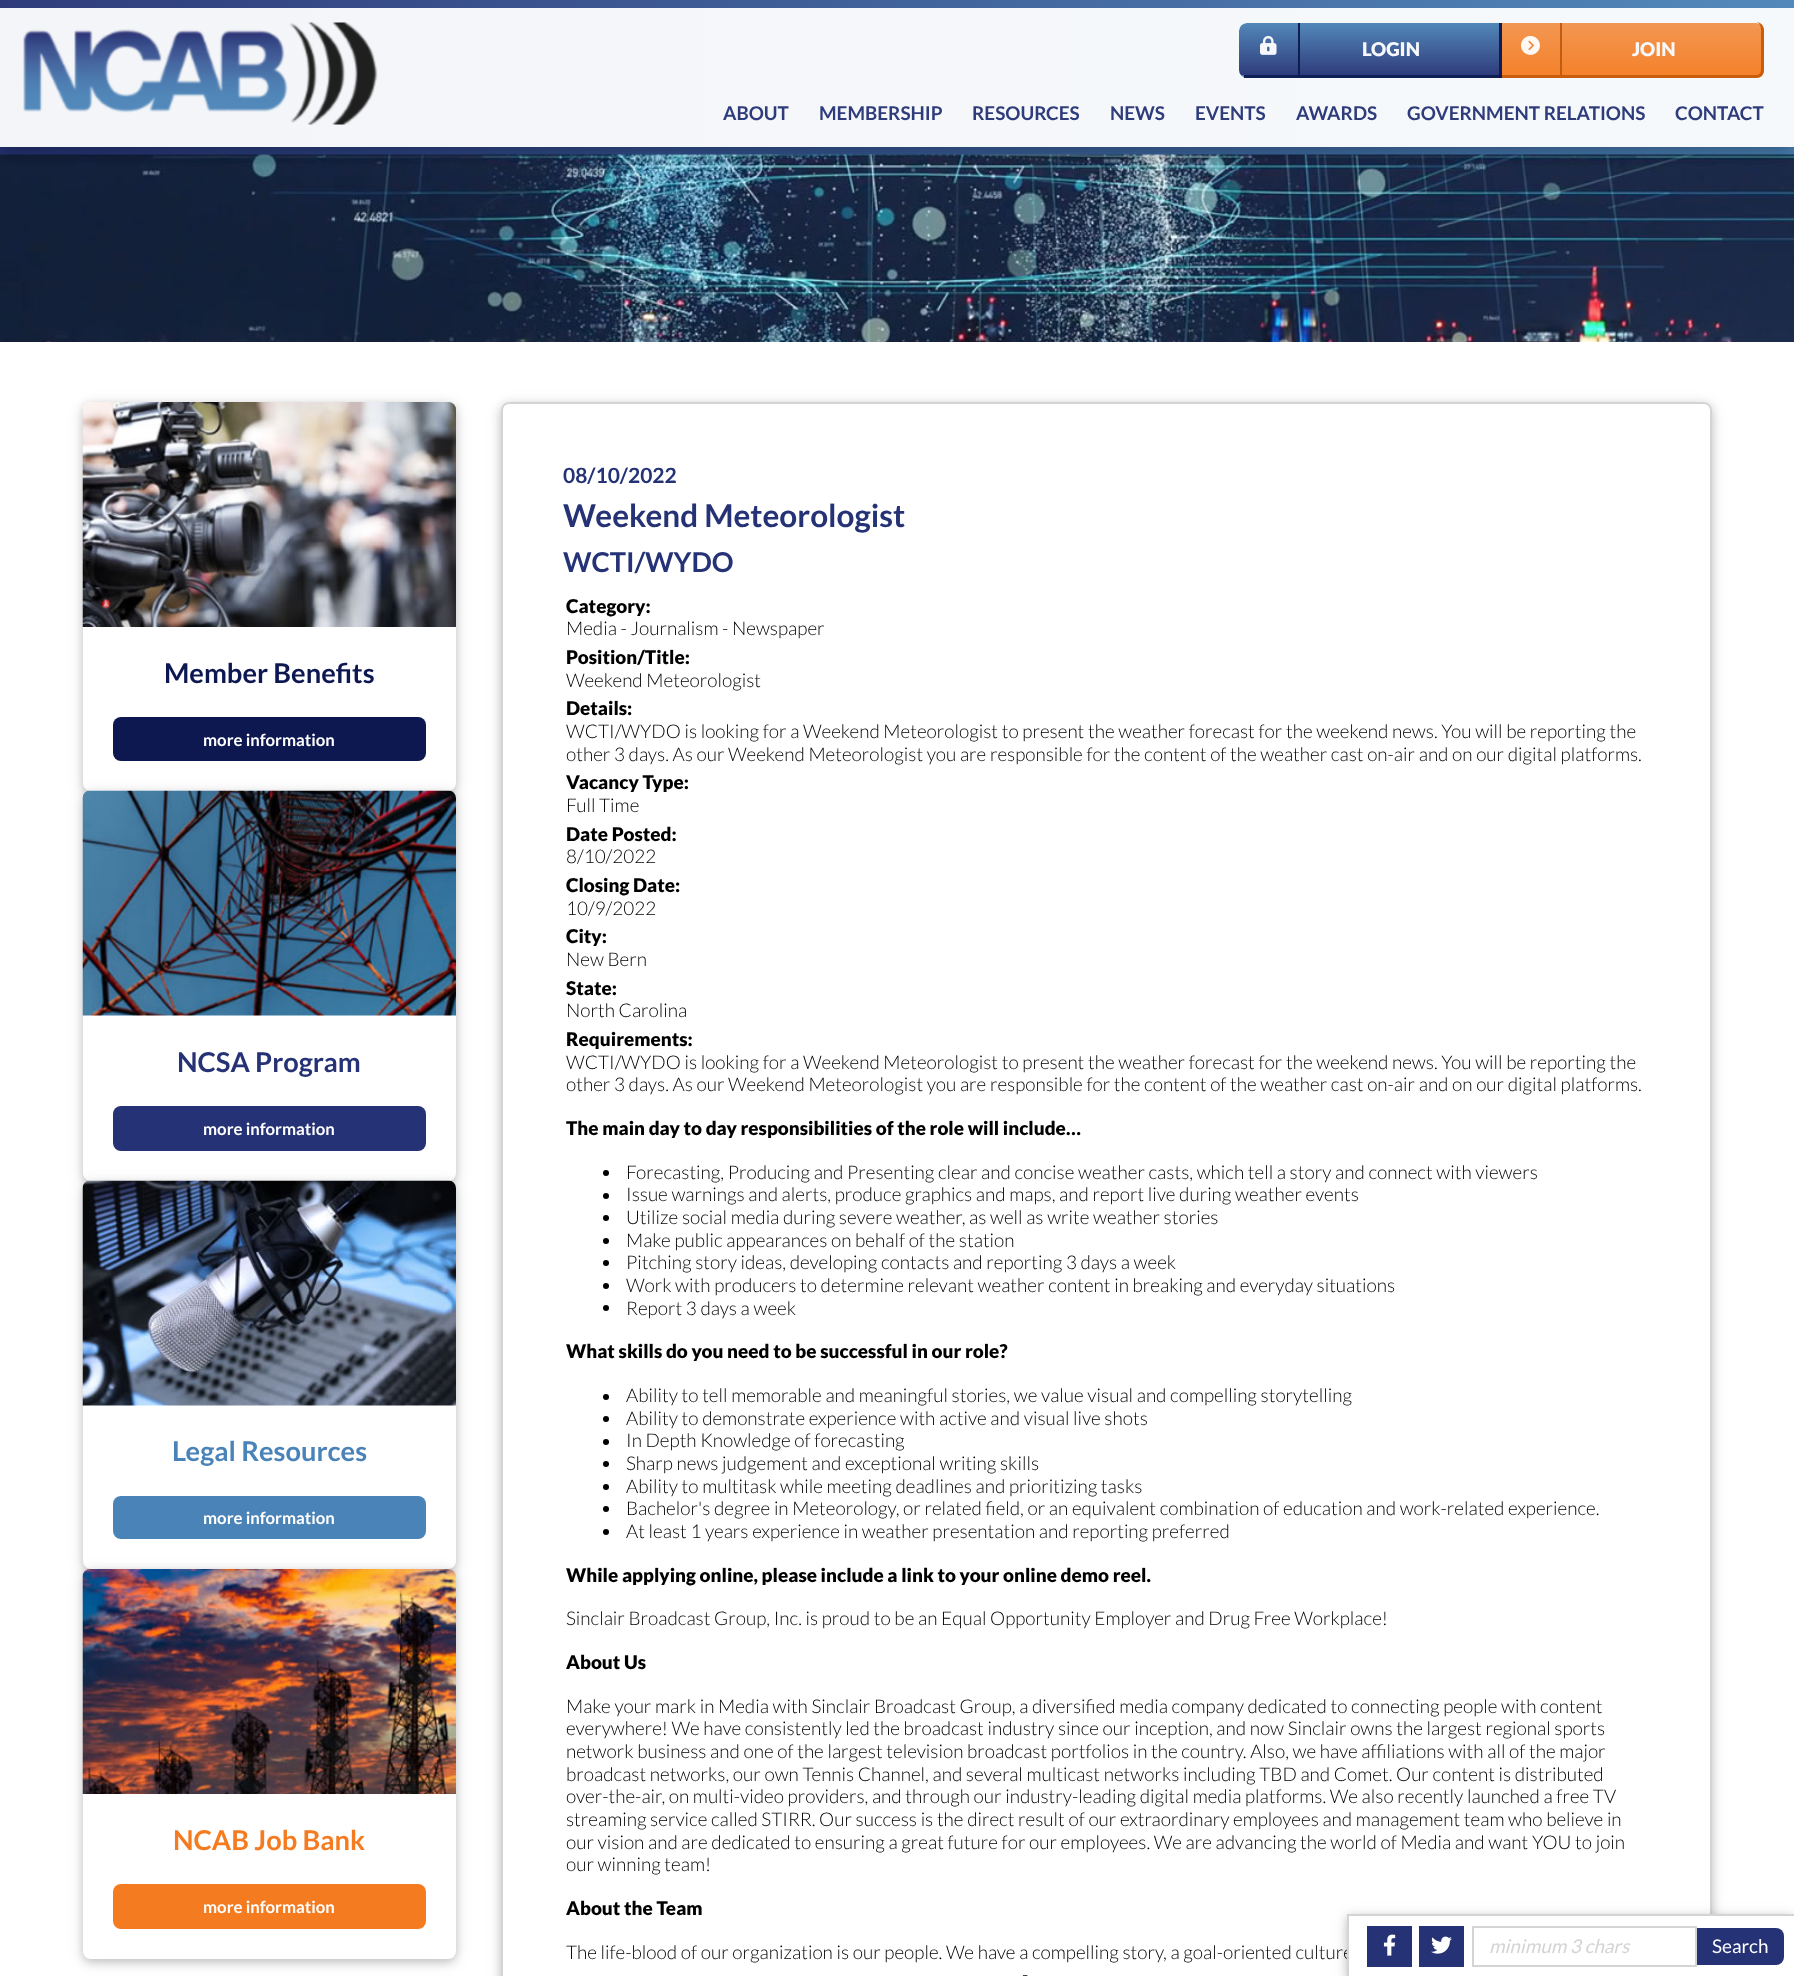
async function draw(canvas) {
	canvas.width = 1794;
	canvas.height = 1976;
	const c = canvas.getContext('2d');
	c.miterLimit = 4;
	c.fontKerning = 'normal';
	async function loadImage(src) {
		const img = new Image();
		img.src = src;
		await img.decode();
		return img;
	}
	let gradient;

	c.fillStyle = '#fff';
	c.fillRect(0, 0, 1794, 1976);
	gradient = c.createLinearGradient(0, 1348, 1794, 1348);
	gradient.addColorStop(0, '#253275');
	gradient.addColorStop(1, '#4a83b7');
	c.fillStyle = gradient;
	c.fillRect(0, 147, 1794, 8);
	gradient = c.createLinearGradient(0, 1348, 1794, 1348);
	gradient.addColorStop(0, '#f4f5f8');
	gradient.addColorStop(1, '#f6f9fb');
	c.fillStyle = gradient;
	c.fillRect(0, 0, 1794, 147);
	c.drawImage(await loadImage('img4.png'), 0, 154, 1794, 188);
	c.save();
	c.beginPath();
	c.rect(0, 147, 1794, 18);
	c.clip();
	c.fillStyle = '#00000024';
	c.filter = 'blur(11px)';
	c.beginPath();
	c.rect(0, 6, 1794, 147);
	c.fill();
	c.filter = 'none';
	c.restore();
	c.save();
	c.beginPath();
	c.rect(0, 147, 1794, 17);
	c.clip();
	c.fillStyle = '#0000002b';
	c.filter = 'blur(8px)';
	c.beginPath();
	c.rect(0, 8, 1794, 147);
	c.fill();
	c.filter = 'none';
	c.restore();
	gradient = c.createLinearGradient(0, 3.8, 1794, 3.7);
	gradient.addColorStop(0, '#253275f2');
	gradient.addColorStop(1, '#4a83b7f2');
	c.fillStyle = gradient;
	c.fillRect(0, 0, 1794, 8);
	c.drawImage(await loadImage('img1.png'), 23, 22, 355, 103);
	c.save();
	c.beginPath();
	c.roundRect(1239, 23, 263, 55, [8, 0, 0, 8]);
	c.clip();
	gradient = c.createLinearGradient(1369, 22, 1369, 75);
	gradient.addColorStop(0, '#5389ba');
	gradient.addColorStop(1, '#2f3c7c');
	c.fillStyle = gradient;
	c.beginPath();
	c.roundRect(1239, 23, 263, 52, [8, 0, 0, 0]);
	c.fill();
	gradient = c.createLinearGradient(1369, 75, 1369, 128);
	gradient.addColorStop(0, '#5389ba');
	gradient.addColorStop(1, '#2f3c7c');
	c.fillStyle = gradient;
	c.fillRect(1239, 75, 263, 3);
	c.restore();
	for (const [x, y, w, h, color] of [
		[1499, 23, 3, 55, '#101d55'],
		[1244, 75, 258, 3, '#0d1850f2'],
		[1298, 23, 2, 52, '#101c54'],
	]) {
		c.fillStyle = color;
		c.fillRect(x, y, w, h);
	}
	c.drawImage(await loadImage('img2.png'), 1260, 36, 17, 19);
	c.font = '900 18.9px Lato';
	c.fillStyle = '#f6f8fb';
	c.fillText('LOGIN', 1362, 56);
	c.save();
	c.beginPath();
	c.roundRect(1502, 23, 262, 55, [0, 8, 8, 0]);
	c.clip();
	gradient = c.createLinearGradient(1631, 22, 1631, 75);
	gradient.addColorStop(0, '#f29753');
	gradient.addColorStop(1, '#f5812b');
	c.fillStyle = gradient;
	c.beginPath();
	c.roundRect(1502, 23, 262, 52, [0, 8, 0, 0]);
	c.fill();
	gradient = c.createLinearGradient(1631, 75, 1631, 128);
	gradient.addColorStop(0, '#f29753');
	gradient.addColorStop(1, '#f5812b');
	c.fillStyle = gradient;
	c.fillRect(1502, 75, 262, 3);
	c.restore();
	c.fillStyle = '#c75a08f2';
	c.beginPath();
	c.moveTo(1502, 22);
	c.lineTo(1756, 22);
	c.bezierCurveTo(1761, 22, 1764, 26, 1764, 30);
	c.lineTo(1764, 70);
	c.bezierCurveTo(1764, 75, 1761, 78, 1756, 78);
	c.lineTo(1502, 78);
	c.closePath();
	c.moveTo(1502, 22);
	c.lineTo(1756, 22);
	c.bezierCurveTo(1759, 22, 1761, 26, 1761, 30);
	c.lineTo(1761, 70);
	c.bezierCurveTo(1761, 73, 1759, 75, 1756, 75);
	c.lineTo(1502, 75);
	c.closePath();
	c.fill('evenodd');
	c.fillStyle = '#c15c10';
	c.fillRect(1560, 23, 2, 52);
	c.drawImage(await loadImage('img3.png'), 1521, 36, 19, 19);
	c.fillStyle = '#f6f8fb';
	c.fillText('JOIN', 1632, 56);
	c.font = 'bold 18.9px Lato';
	c.fillStyle = '#2f3c7c';
	for (const [text, x, y] of [
		['ABOUT', 723, 120],
		['MEMBERSHIP', 819, 120],
		['RESOURCES', 972, 120],
		['NEWS', 1110, 120],
		['EVENTS', 1195, 120],
		['AWARDS', 1296, 120],
		['GOVERNMENT RELATIONS', 1407, 120],
		['CONTACT', 1675, 120],
	]) {
		c.fillText(text, x, y);
	}
	c.fillStyle = '#0000001f';
	c.filter = 'blur(7.5px)';
	c.beginPath();
	c.roundRect(83, 405, 373, 389, 8);
	c.fill();
	c.filter = 'none';
	c.fillStyle = '#00000029';
	c.filter = 'blur(4px)';
	c.beginPath();
	c.roundRect(83, 405, 373, 389, 8);
	c.fill();
	c.filter = 'none';
	c.fillStyle = '#fff';
	c.beginPath();
	c.roundRect(83, 402, 373, 389, 8);
	c.fill();
	c.drawImage(await loadImage('img5.png'), 82, 402, 374, 225);
	c.font = 'bold 27.25px Lato';
	c.fillStyle = '#0d1850';
	c.fillText('Member Benefits', 164, 683);
	c.beginPath();
	c.roundRect(113, 717, 313, 44, 8);
	c.fill();
	c.font = 'bold 16.75px Lato';
	c.fillStyle = '#fff';
	c.fillText('more information', 203, 746);
	c.fillStyle = '#0000001f';
	c.filter = 'blur(7.5px)';
	c.beginPath();
	c.roundRect(83, 794, 373, 390, 8);
	c.fill();
	c.filter = 'none';
	c.fillStyle = '#00000029';
	c.filter = 'blur(4px)';
	c.beginPath();
	c.roundRect(83, 794, 373, 390, 8);
	c.fill();
	c.filter = 'none';
	c.fillStyle = '#fff';
	c.beginPath();
	c.roundRect(83, 791, 373, 390, 8);
	c.fill();
	c.drawImage(await loadImage('img6.png'), 82, 790, 374, 226);
	c.font = 'bold 27.25px Lato';
	c.fillStyle = '#253275';
	c.fillText('NCSA Program', 177, 1072);
	c.beginPath();
	c.roundRect(113, 1106, 313, 45, 8);
	c.fill();
	c.font = 'bold 16.75px Lato';
	c.fillStyle = '#fff';
	c.fillText('more information', 203, 1135);
	c.fillStyle = '#0000001f';
	c.filter = 'blur(7.5px)';
	c.beginPath();
	c.roundRect(83, 1184, 373, 388, 8);
	c.fill();
	c.filter = 'none';
	c.fillStyle = '#00000029';
	c.filter = 'blur(4px)';
	c.beginPath();
	c.roundRect(83, 1184, 373, 388, 8);
	c.fill();
	c.filter = 'none';
	c.fillStyle = '#fff';
	c.beginPath();
	c.roundRect(83, 1181, 373, 388, 8);
	c.fill();
	c.drawImage(await loadImage('img7.png'), 82, 1180, 374, 226);
	c.font = 'bold 27.25px Lato';
	c.fillStyle = '#4a83b7';
	c.fillText('Legal Resources', 172, 1461);
	c.beginPath();
	c.roundRect(113, 1496, 313, 43, 8);
	c.fill();
	c.font = 'bold 16.75px Lato';
	c.fillStyle = '#fff';
	c.fillText('more information', 203, 1524);
	c.fillStyle = '#0000001f';
	c.filter = 'blur(7.5px)';
	c.beginPath();
	c.roundRect(83, 1572, 373, 390, 8);
	c.fill();
	c.filter = 'none';
	c.fillStyle = '#00000029';
	c.filter = 'blur(4px)';
	c.beginPath();
	c.roundRect(83, 1572, 373, 390, 8);
	c.fill();
	c.filter = 'none';
	c.fillStyle = '#fff';
	c.beginPath();
	c.roundRect(83, 1569, 373, 390, 8);
	c.fill();
	c.drawImage(await loadImage('img8.png'), 82, 1569, 374, 225);
	c.font = 'bold 27.25px Lato';
	c.fillStyle = '#f57b20';
	c.fillText('NCAB Job Bank', 173, 1850);
	c.beginPath();
	c.roundRect(113, 1884, 313, 45, 8);
	c.fill();
	c.font = 'bold 16.75px Lato';
	c.fillStyle = '#fff';
	c.fillText('more information', 203, 1913);
	c.save();
	c.beginPath();
	c.moveTo(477, 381);
	c.lineTo(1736, 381);
	c.lineTo(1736, 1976);
	c.lineTo(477, 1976);
	c.closePath();
	c.moveTo(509, 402);
	c.lineTo(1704, 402);
	c.bezierCurveTo(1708.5, 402, 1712, 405.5, 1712, 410);
	c.lineTo(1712, 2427);
	c.bezierCurveTo(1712, 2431.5, 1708.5, 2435, 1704, 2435);
	c.lineTo(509, 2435);
	c.bezierCurveTo(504.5, 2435, 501, 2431.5, 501, 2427);
	c.lineTo(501, 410);
	c.bezierCurveTo(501, 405.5, 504.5, 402, 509, 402);
	c.closePath();
	c.clip('evenodd');
	c.fillStyle = '#0000001f';
	c.filter = 'blur(7.5px)';
	c.beginPath();
	c.roundRect(501, 405, 1211, 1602, 8);
	c.fill();
	c.filter = 'none';
	c.restore();
	c.save();
	c.beginPath();
	c.moveTo(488, 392);
	c.lineTo(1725, 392);
	c.lineTo(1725, 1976);
	c.lineTo(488, 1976);
	c.closePath();
	c.moveTo(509, 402);
	c.lineTo(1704, 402);
	c.bezierCurveTo(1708.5, 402, 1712, 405.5, 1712, 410);
	c.lineTo(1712, 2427);
	c.bezierCurveTo(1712, 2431.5, 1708.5, 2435, 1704, 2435);
	c.lineTo(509, 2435);
	c.bezierCurveTo(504.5, 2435, 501, 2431.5, 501, 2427);
	c.lineTo(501, 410);
	c.bezierCurveTo(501, 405.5, 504.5, 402, 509, 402);
	c.closePath();
	c.clip('evenodd');
	c.fillStyle = '#00000029';
	c.filter = 'blur(4px)';
	c.beginPath();
	c.roundRect(501, 405, 1211, 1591, 8);
	c.fill();
	c.filter = 'none';
	c.restore();
	c.beginPath();
	c.roundRect(502, 403, 1209, 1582, 7);
	c.strokeStyle = '#d4d4d4';
	c.lineWidth = 2;
	c.stroke();
	c.font = 'bold 21px Lato';
	c.fillStyle = '#253275';
	c.fillText('08/10/2022', 563, 483);
	c.font = 'bold 31.5px Lato';
	c.fillText('Weekend Meteorologist', 563, 527);
	c.font = 'bold 27.25px Lato';
	c.fillText('WCTI/WYDO', 563, 572);
	c.font = '900 18.9px Lato';
	c.fillStyle = '#000';
	c.fillText('Category:', 566, 613);
	c.font = '300 18.9px Lato';
	c.fillText('Media - Journalism - Newspaper', 566, 635);
	c.font = '900 18.9px Lato';
	c.fillText('Position/Title:', 566, 664);
	c.font = '300 18.9px Lato';
	c.fillText('Weekend Meteorologist', 566, 687);
	c.font = '900 18.9px Lato';
	c.fillText('Details:', 566, 715);
	c.font = '300 18.9px Lato';
	c.fillText('WCTI/WYDO is looking for a Weekend Meteorologist to present the weather forecast for the weekend news. You will be reporting the', 566, 738);
	c.fillText('other 3 days. As our Weekend Meteorologist you are responsible for the content of the weather cast on-air and on our digital platforms.', 566, 761);
	c.font = '900 18.9px Lato';
	c.fillText('Vacancy Type:', 566, 789);
	c.font = '300 18.9px Lato';
	c.fillText('Full Time', 566, 812);
	c.font = '900 18.9px Lato';
	c.fillText('Date Posted:', 566, 841);
	c.font = '300 18.9px Lato';
	c.fillText('8/10/2022', 566, 863);
	c.font = '900 18.9px Lato';
	c.fillText('Closing Date:', 566, 892);
	c.font = '300 18.9px Lato';
	c.fillText('10/9/2022', 566, 915);
	c.font = '900 18.9px Lato';
	c.fillText('City:', 566, 943);
	c.font = '300 18.9px Lato';
	c.fillText('New Bern', 566, 966);
	c.font = '900 18.9px Lato';
	c.fillText('State:', 566, 995);
	c.font = '300 18.9px Lato';
	c.fillText('North Carolina', 566, 1017);
	c.font = '900 18.9px Lato';
	c.fillText('Requirements:', 566, 1046);
	c.font = '300 18.9px Lato';
	c.fillText('WCTI/WYDO is looking for a Weekend Meteorologist to present the weather forecast for the weekend news. You will be reporting the', 566, 1069);
	c.fillText('other 3 days. As our Weekend Meteorologist you are responsible for the content of the weather cast on-air and on our digital platforms.', 566, 1091);
	c.font = '900 18.9px Lato';
	c.fillText('The main day to day responsibilities of the role will include…', 566, 1135);
	c.beginPath();
	c.arc(606, 1173, 3, 0, 2 * Math.PI);
	c.fill();
	c.font = '300 18.9px Lato';
	c.fillText('Forecasting, Producing and Presenting clear and concise weather casts, which tell a story and connect with viewers', 626, 1179);
	c.beginPath();
	c.arc(606, 1196, 3, 0, 2 * Math.PI);
	c.fill();
	c.fillText('Issue warnings and alerts, produce graphics and maps, and report live during weather events', 626, 1201);
	c.beginPath();
	c.arc(606, 1218, 3, 0, 2 * Math.PI);
	c.fill();
	c.fillText('Utilize social media during severe weather, as well as write weather stories', 626, 1224);
	c.beginPath();
	c.arc(606, 1241, 3, 0, 2 * Math.PI);
	c.fill();
	c.fillText('Make public appearances on behalf of the station', 626, 1247);
	c.beginPath();
	c.arc(606, 1263, 3, 0, 2 * Math.PI);
	c.fill();
	c.fillText('Pitching story ideas, developing contacts and reporting 3 days a week', 626, 1269);
	c.beginPath();
	c.arc(606, 1286, 3, 0, 2 * Math.PI);
	c.fill();
	c.fillText('Work with producers to determine relevant weather content in breaking and everyday situations', 626, 1292);
	c.beginPath();
	c.arc(606, 1308, 3, 0, 2 * Math.PI);
	c.fill();
	c.fillText('Report 3 days a week', 626, 1315);
	c.font = '900 18.9px Lato';
	c.fillText('What skills do you need to be successful in our role?', 566, 1358);
	c.beginPath();
	c.arc(606, 1397, 3, 0, 2 * Math.PI);
	c.fill();
	c.font = '300 18.9px Lato';
	c.fillText('Ability to tell memorable and meaningful stories, we value visual and compelling storytelling', 626, 1402);
	c.beginPath();
	c.arc(606, 1419, 3, 0, 2 * Math.PI);
	c.fill();
	c.fillText('Ability to demonstrate experience with active and visual live shots', 626, 1425);
	c.beginPath();
	c.arc(606, 1442, 3, 0, 2 * Math.PI);
	c.fill();
	c.fillText('In Depth Knowledge of forecasting', 626, 1447);
	c.beginPath();
	c.arc(606, 1464, 3, 0, 2 * Math.PI);
	c.fill();
	c.fillText('Sharp news judgement and exceptional writing skills', 626, 1470);
	c.beginPath();
	c.arc(606, 1487, 3, 0, 2 * Math.PI);
	c.fill();
	c.fillText('Ability to multitask while meeting deadlines and prioritizing tasks', 626, 1493);
	c.beginPath();
	c.arc(606, 1509, 3, 0, 2 * Math.PI);
	c.fill();
	c.fillText('Bachelor\'s degree in Meteorology, or related field, or an equivalent combination of education and work-related experience.', 626, 1515);
	c.beginPath();
	c.arc(606, 1532, 3, 0, 2 * Math.PI);
	c.fill();
	c.fillText('At least 1 years experience in weather presentation and reporting preferred', 626, 1538);
	c.font = '900 18.9px Lato';
	c.fillText('While applying online, please include a link to your online demo reel.', 566, 1582);
	c.font = '300 18.9px Lato';
	c.fillText('Sinclair Broadcast Group, Inc. is proud to be an Equal Opportunity Employer and Drug Free Workplace!', 566, 1625);
	c.font = '900 18.9px Lato';
	c.fillText('About Us', 566, 1669);
	c.font = '300 18.9px Lato';
	for (const [text, x, y] of [
		['Make your mark in Media with Sinclair Broadcast Group, a diversified media company dedicated to connecting people with content', 566, 1713],
		['everywhere! We have consistently led the broadcast industry since our inception, and now Sinclair owns the largest regional sports', 566, 1735],
		['network business and one of the largest television broadcast portfolios in the country. Also, we have affiliations with all of the major', 566, 1758],
		['broadcast networks, our own Tennis Channel, and several multicast networks including TBD and Comet. Our content is distributed', 566, 1781],
		['over-the-air, on multi-video providers, and through our industry-leading digital media platforms. We also recently launched a free TV', 566, 1803],
		['streaming service called STIRR. Our success is the direct result of our extraordinary employees and management team who believe in', 566, 1826],
		['our vision and are dedicated to ensuring a great future for our employees. We are advancing the world of Media and want YOU to join', 566, 1849],
		['our winning team!', 566, 1871],
	]) {
		c.fillText(text, x, y);
	}
	c.font = '900 18.9px Lato';
	c.fillText('About the Team', 566, 1915);
	c.font = '300 18.9px Lato';
	c.fillText('The life-blood of our organization is our people. We have a compelling story, a goal-oriented culture', 566, 1959);
	c.fillText('-', 1022, 1981);
	c.fillStyle = '#0000001f';
	c.filter = 'blur(7.5px)';
	c.beginPath();
	c.rect(1347, 1917, 447, 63);
	c.fill();
	c.filter = 'none';
	c.fillStyle = '#00000029';
	c.filter = 'blur(4px)';
	c.beginPath();
	c.rect(1347, 1917, 447, 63);
	c.fill();
	c.filter = 'none';
	for (const [x, y, w, h, color] of [
		[1349, 1916, 445, 60, '#fff'],
		[1347, 1914, 447, 2, '#d4d4d4'],
		[1347, 1914, 2, 62, '#d4d4d4'],
		[1367, 1926, 45, 41, '#253275'],
	]) {
		c.fillStyle = color;
		c.fillRect(x, y, w, h);
	}
	c.drawImage(await loadImage('img9.png'), 1383, 1934, 13, 22);
	c.fillRect(1419, 1926, 45, 41);
	c.drawImage(await loadImage('img10.png'), 1431, 1936, 21, 18);
	c.strokeRect(1473, 1927, 223, 39);
	c.font = 'italic 18.9px Lato';
	c.fillStyle = '#d4d4d4';
	c.fillText('minimum 3 chars', 1489, 1953);
	c.fillStyle = '#253275';
	c.beginPath();
	c.roundRect(1697, 1928, 87, 37, [0, 8, 8, 0]);
	c.fill();
	c.font = '18.9px Lato';
	c.fillStyle = '#fff';
	c.fillText('Search', 1712, 1953);
}

draw(document.querySelector('canvas'));
